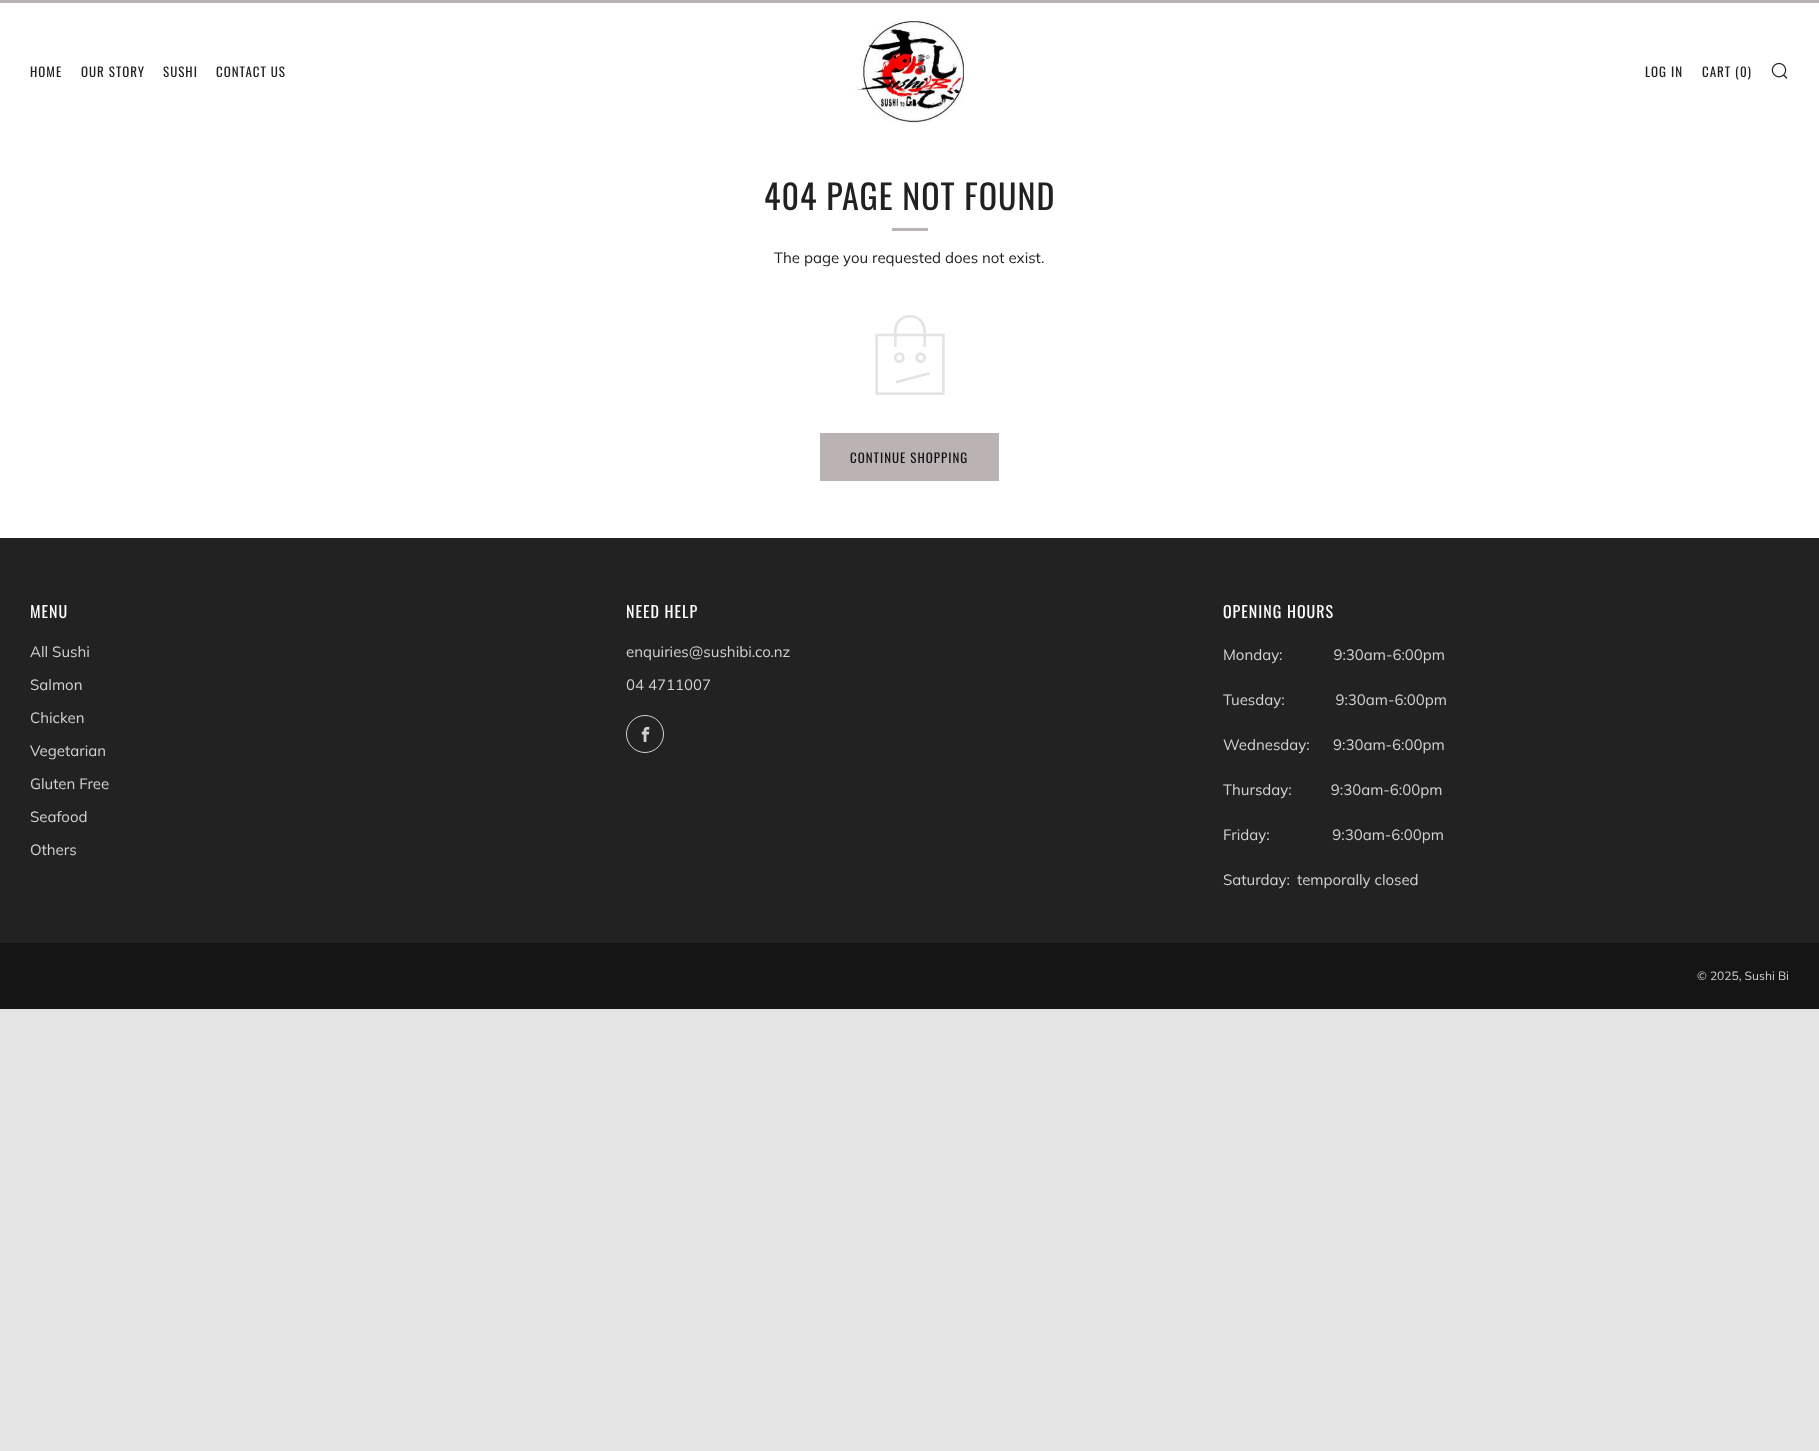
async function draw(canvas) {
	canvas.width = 1819;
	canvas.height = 1451;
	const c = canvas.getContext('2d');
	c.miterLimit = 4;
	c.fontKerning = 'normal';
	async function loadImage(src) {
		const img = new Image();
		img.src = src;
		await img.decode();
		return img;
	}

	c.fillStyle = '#e4e4e4';
	c.fillRect(0, 0, 1819, 1451);
	c.fillStyle = '#fff';
	c.fillRect(0, 3, 1819, 535);
	c.fillStyle = '#bbb3b3';
	c.fillRect(0, 0, 1819, 3);
	c.drawImage(await loadImage('img1.png'), 855, 21, 109, 102);
	c.letterSpacing = '1px';
	c.font = '13px Oswald';
	c.fillStyle = '#212121';
	for (const [text, x, y] of [
		['HOME', 30, 77],
		['OUR STORY', 81, 77],
		['SUSHI', 163, 77],
		['CONTACT US', 216, 77],
		['LOG IN', 1645, 77],
		['CART (0)', 1702, 77],
	]) {
		c.fillText(text, x, y);
	}
	c.drawImage(await loadImage('img2.png'), 1771, 62, 17, 17);
	c.font = '34px Oswald';
	c.fillText('404 PAGE NOT FOUND', 764, 210);
	c.fillStyle = '#bbb3b3';
	c.fillRect(892, 228, 36, 3);
	c.letterSpacing = '0px';
	c.font = '15px Muli';
	c.fillStyle = '#212121';
	c.fillText('The page you requested does not exist.', 774, 263);
	c.drawImage(await loadImage('img3.png'), 875, 315, 70, 80);
	c.fillStyle = '#bbb3b3';
	c.fillRect(820, 433, 179, 48);
	c.letterSpacing = '1px';
	c.font = '13px Oswald';
	c.fillStyle = '#111';
	c.fillText('CONTINUE SHOPPING', 850, 463);
	c.fillStyle = '#222';
	c.fillRect(0, 538, 1819, 405);
	c.font = '16px Oswald';
	c.fillStyle = '#fff';
	c.fillText('MENU', 30, 618);
	c.letterSpacing = '0px';
	c.font = '15px Muli';
	c.fillStyle = '#d3d3d3';
	for (const [text, x, y] of [
		['All Sushi', 30, 657],
		['Salmon', 30, 690],
		['Chicken', 30, 723],
		['Vegetarian', 30, 756],
		['Gluten Free', 30, 789],
		['Seafood', 30, 822],
		['Others', 30, 855],
	]) {
		c.fillText(text, x, y);
	}
	c.letterSpacing = '1px';
	c.font = '16px Oswald';
	c.fillStyle = '#fff';
	c.fillText('NEED HELP', 626, 618);
	c.letterSpacing = '0px';
	c.font = '15px Muli';
	c.fillStyle = '#d3d3d3';
	c.fillText('enquiries@sushibi.co.nz', 626, 657);
	c.fillText('04 4711007', 626, 690);
	c.beginPath();
	c.arc(645, 734, 18.5, 0, 2 * Math.PI);
	c.strokeStyle = '#d3d3d3';
	c.stroke();
	c.drawImage(await loadImage('img4.png'), 641, 726, 9, 16);
	c.letterSpacing = '1px';
	c.font = '16px Oswald';
	c.fillStyle = '#fff';
	c.fillText('OPENING HOURS', 1223, 618);
	c.letterSpacing = '0px';
	c.font = '15px Muli';
	c.fillStyle = '#d3d3d3';
	for (const [text, x, y] of [
		['Monday:             9:30am-6:00pm', 1223, 660],
		['Tuesday:             9:30am-6:00pm', 1223, 705],
		['Wednesday:', 1223, 750],
		['9:30am-6:00pm', 1333, 750],
		['Thursday:          9:30am-6:00pm', 1223, 795],
		['Friday:                9:30am-6:00pm', 1223, 840],
		['Saturday:', 1223, 885],
		['temporally closed', 1297, 885],
	]) {
		c.fillText(text, x, y);
	}
	c.fillStyle = '#151515';
	c.fillRect(0, 943, 1819, 66);
	c.font = '12px Muli';
	c.fillStyle = '#d3d3d3';
	c.fillText('© 2025, Sushi Bi', 1697, 980);
}

draw(document.querySelector('canvas'));
